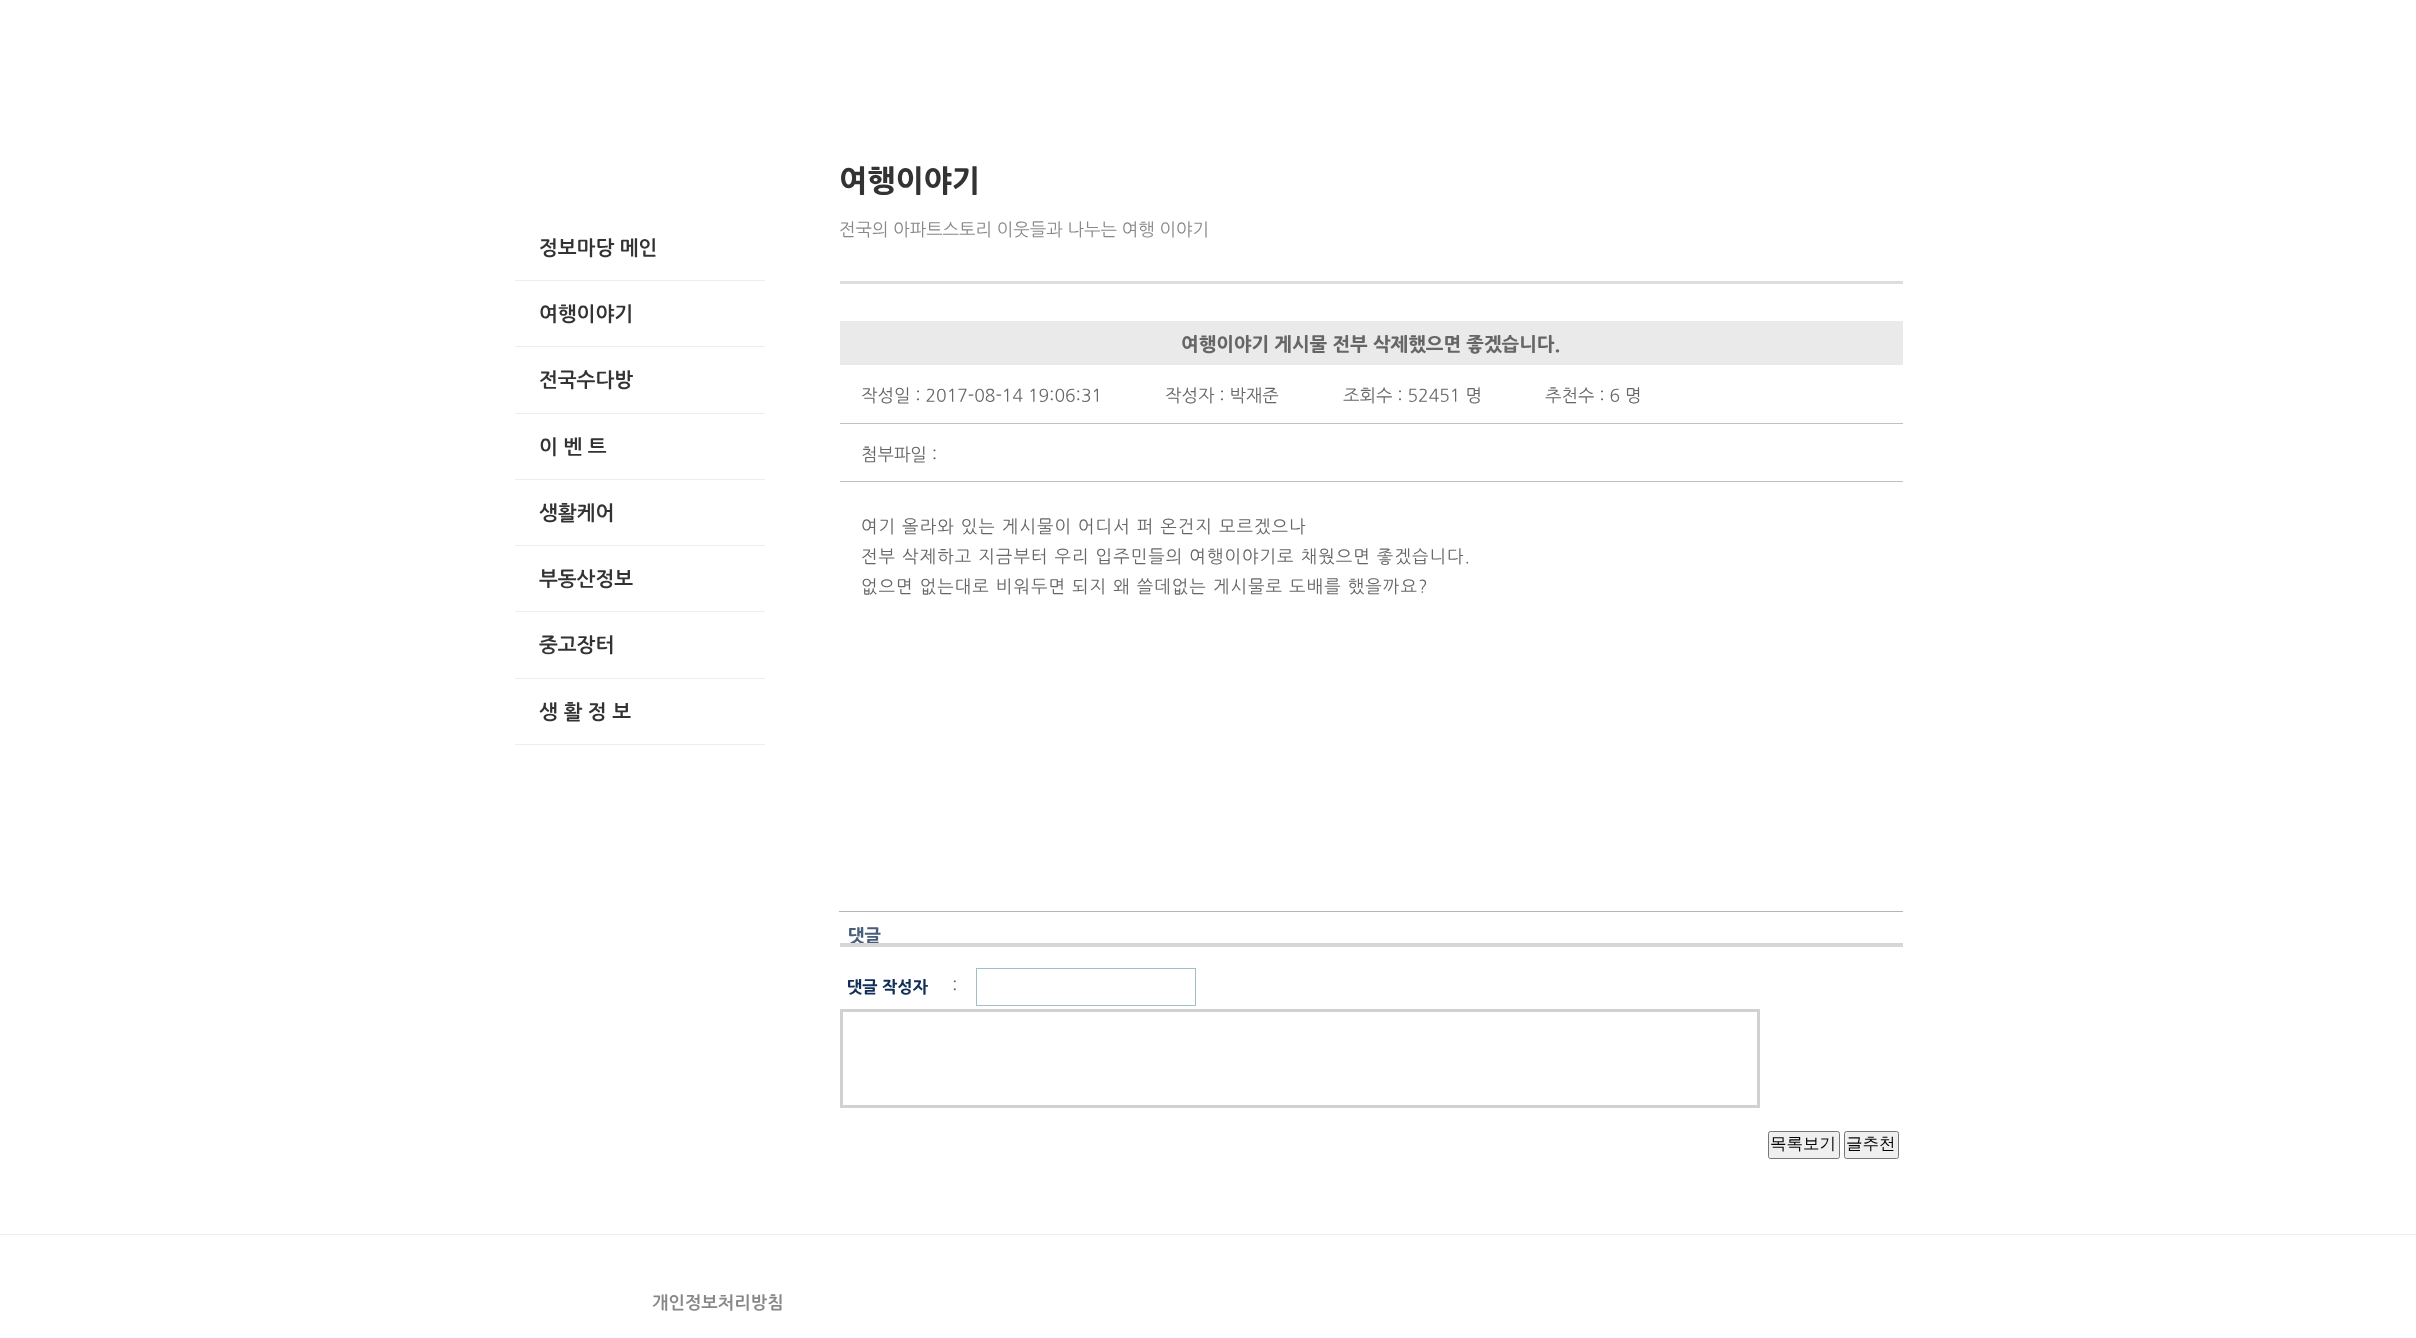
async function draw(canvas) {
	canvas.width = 2416;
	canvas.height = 1338;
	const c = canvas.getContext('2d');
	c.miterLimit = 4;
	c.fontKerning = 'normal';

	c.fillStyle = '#fff';
	c.fillRect(0, 0, 2416, 1338);
	c.fillStyle = '#ededed';
	c.fillRect(515, 280, 250, 1);
	c.font = 'bold 20px NanumGothic';
	c.fillStyle = '#333';
	c.fillText('정보마당 메인', 539, 254);
	c.fillStyle = '#ededed';
	c.fillRect(515, 346, 250, 1);
	c.fillStyle = '#333';
	c.fillText('여행이야기', 539, 320);
	c.fillStyle = '#ededed';
	c.fillRect(515, 413, 250, 1);
	c.fillStyle = '#333';
	c.fillText('전국수다방', 539, 386);
	c.fillStyle = '#ededed';
	c.fillRect(515, 479, 250, 1);
	c.fillStyle = '#333';
	c.fillText('이 벤 트', 539, 453);
	c.fillStyle = '#ededed';
	c.fillRect(515, 545, 250, 1);
	c.fillStyle = '#333';
	c.fillText('생활케어', 539, 519);
	c.fillStyle = '#ededed';
	c.fillRect(515, 611, 250, 1);
	c.fillStyle = '#333';
	c.fillText('부동산정보', 539, 585);
	c.fillStyle = '#ededed';
	c.fillRect(515, 678, 250, 1);
	c.fillStyle = '#333';
	c.fillText('중고장터', 539, 651);
	c.fillStyle = '#ededed';
	c.fillRect(515, 744, 250, 1);
	c.fillStyle = '#333';
	c.fillText('생 활 정 보', 539, 718);
	c.font = '800 30px NanumGothic';
	c.fillText('여행이야기', 839, 190);
	c.font = '17.5px NanumGothic';
	c.fillStyle = '#888';
	c.fillText('전국의 아파트스토리 이웃들과 나누는 여행 이야기', 839, 235);
	c.fillStyle = '#ddd';
	c.fillRect(840, 281, 1063, 3);
	c.fillStyle = '#eaeaea';
	c.fillRect(840, 321, 1063, 44);
	c.font = '800 18.75px NanumGothic';
	c.fillStyle = '#666';
	c.fillText('여행이야기 게시물 전부 삭제했으면 좋겠습니다.', 1181, 350);
	c.fillStyle = '#c1c1c1';
	c.fillRect(840, 423, 1063, 1);
	c.font = '17.5px NanumGothic';
	c.fillStyle = '#666';
	for (const [text, x, y] of [
		['작성일 : 2017-08-14 19:06:31', 861, 401],
		['작성자 : 박재준', 1165, 401],
		['조회수 : 52451 명', 1343, 401],
		['추천수 : 6 명', 1545, 401],
	]) {
		c.fillText(text, x, y);
	}
	c.fillStyle = '#c1c1c1';
	c.fillRect(840, 481, 1063, 1);
	c.fillStyle = '#666';
	c.fillText('첨부파일 :', 861, 460);
	c.fillStyle = '#b5b5b5';
	c.fillRect(839, 911, 1064, 1);
	c.letterSpacing = '1.1px';
	c.fillStyle = '#666';
	for (const [text, x, y] of [
		['여기 올라와 있는 게시물이 어디서 퍼 온건지 모르겠으나', 861, 532],
		['전부 삭제하고 지금부터 우리 입주민들의 여행이야기로 채웠으면 좋겠습니다.', 861, 562],
		['없으면 없는대로 비워두면 되지 왜 쓸데없는 게시물로 도배를 했을까요?', 861, 592],
	]) {
		c.fillText(text, x, y);
	}
	c.letterSpacing = '0px';
	c.font = '800 17.5px NanumGothic';
	c.fillStyle = '#485e7c';
	c.fillText('댓글', 848, 941);
	c.fillStyle = '#d7d7d7';
	c.fillRect(840, 943, 1063, 4);
	c.font = '800 16.25px NanumGothic';
	c.fillStyle = '#112e56';
	c.fillText('댓글 작성자', 847, 992);
	c.font = '17.5px NanumGothic';
	c.fillStyle = '#666';
	c.fillText(':', 952, 991);
	c.strokeStyle = '#a1bfc7';
	c.strokeRect(976.5, 968.5, 219, 37);
	c.strokeStyle = '#d1d1d1';
	c.lineWidth = 3;
	c.strokeRect(841.5, 1010.5, 917, 96);
	c.fillStyle = '#efefef';
	c.beginPath();
	c.roundRect(1768.5, 1131.5, 71, 27, 2);
	c.fill();
	c.strokeStyle = '#767676';
	c.lineWidth = 1;
	c.stroke();
	c.font = '500 16.5px WenQuanYi Zen Hei';
	c.fillStyle = '#000';
	c.fillText('목록보기', 1770, 1149);
	c.fillStyle = '#efefef';
	c.beginPath();
	c.roundRect(1844.5, 1131.5, 54, 27, 2);
	c.fill();
	c.stroke();
	c.fillStyle = '#000';
	c.fillText('글추천', 1846, 1149);
	c.fillStyle = '#eee';
	c.fillRect(0, 1234, 2416, 1);
	c.font = 'bold 17.5px NanumGothic';
	c.fillStyle = '#888';
	c.fillText('개인정보처리방침', 652, 1308);
}

draw(document.querySelector('canvas'));
